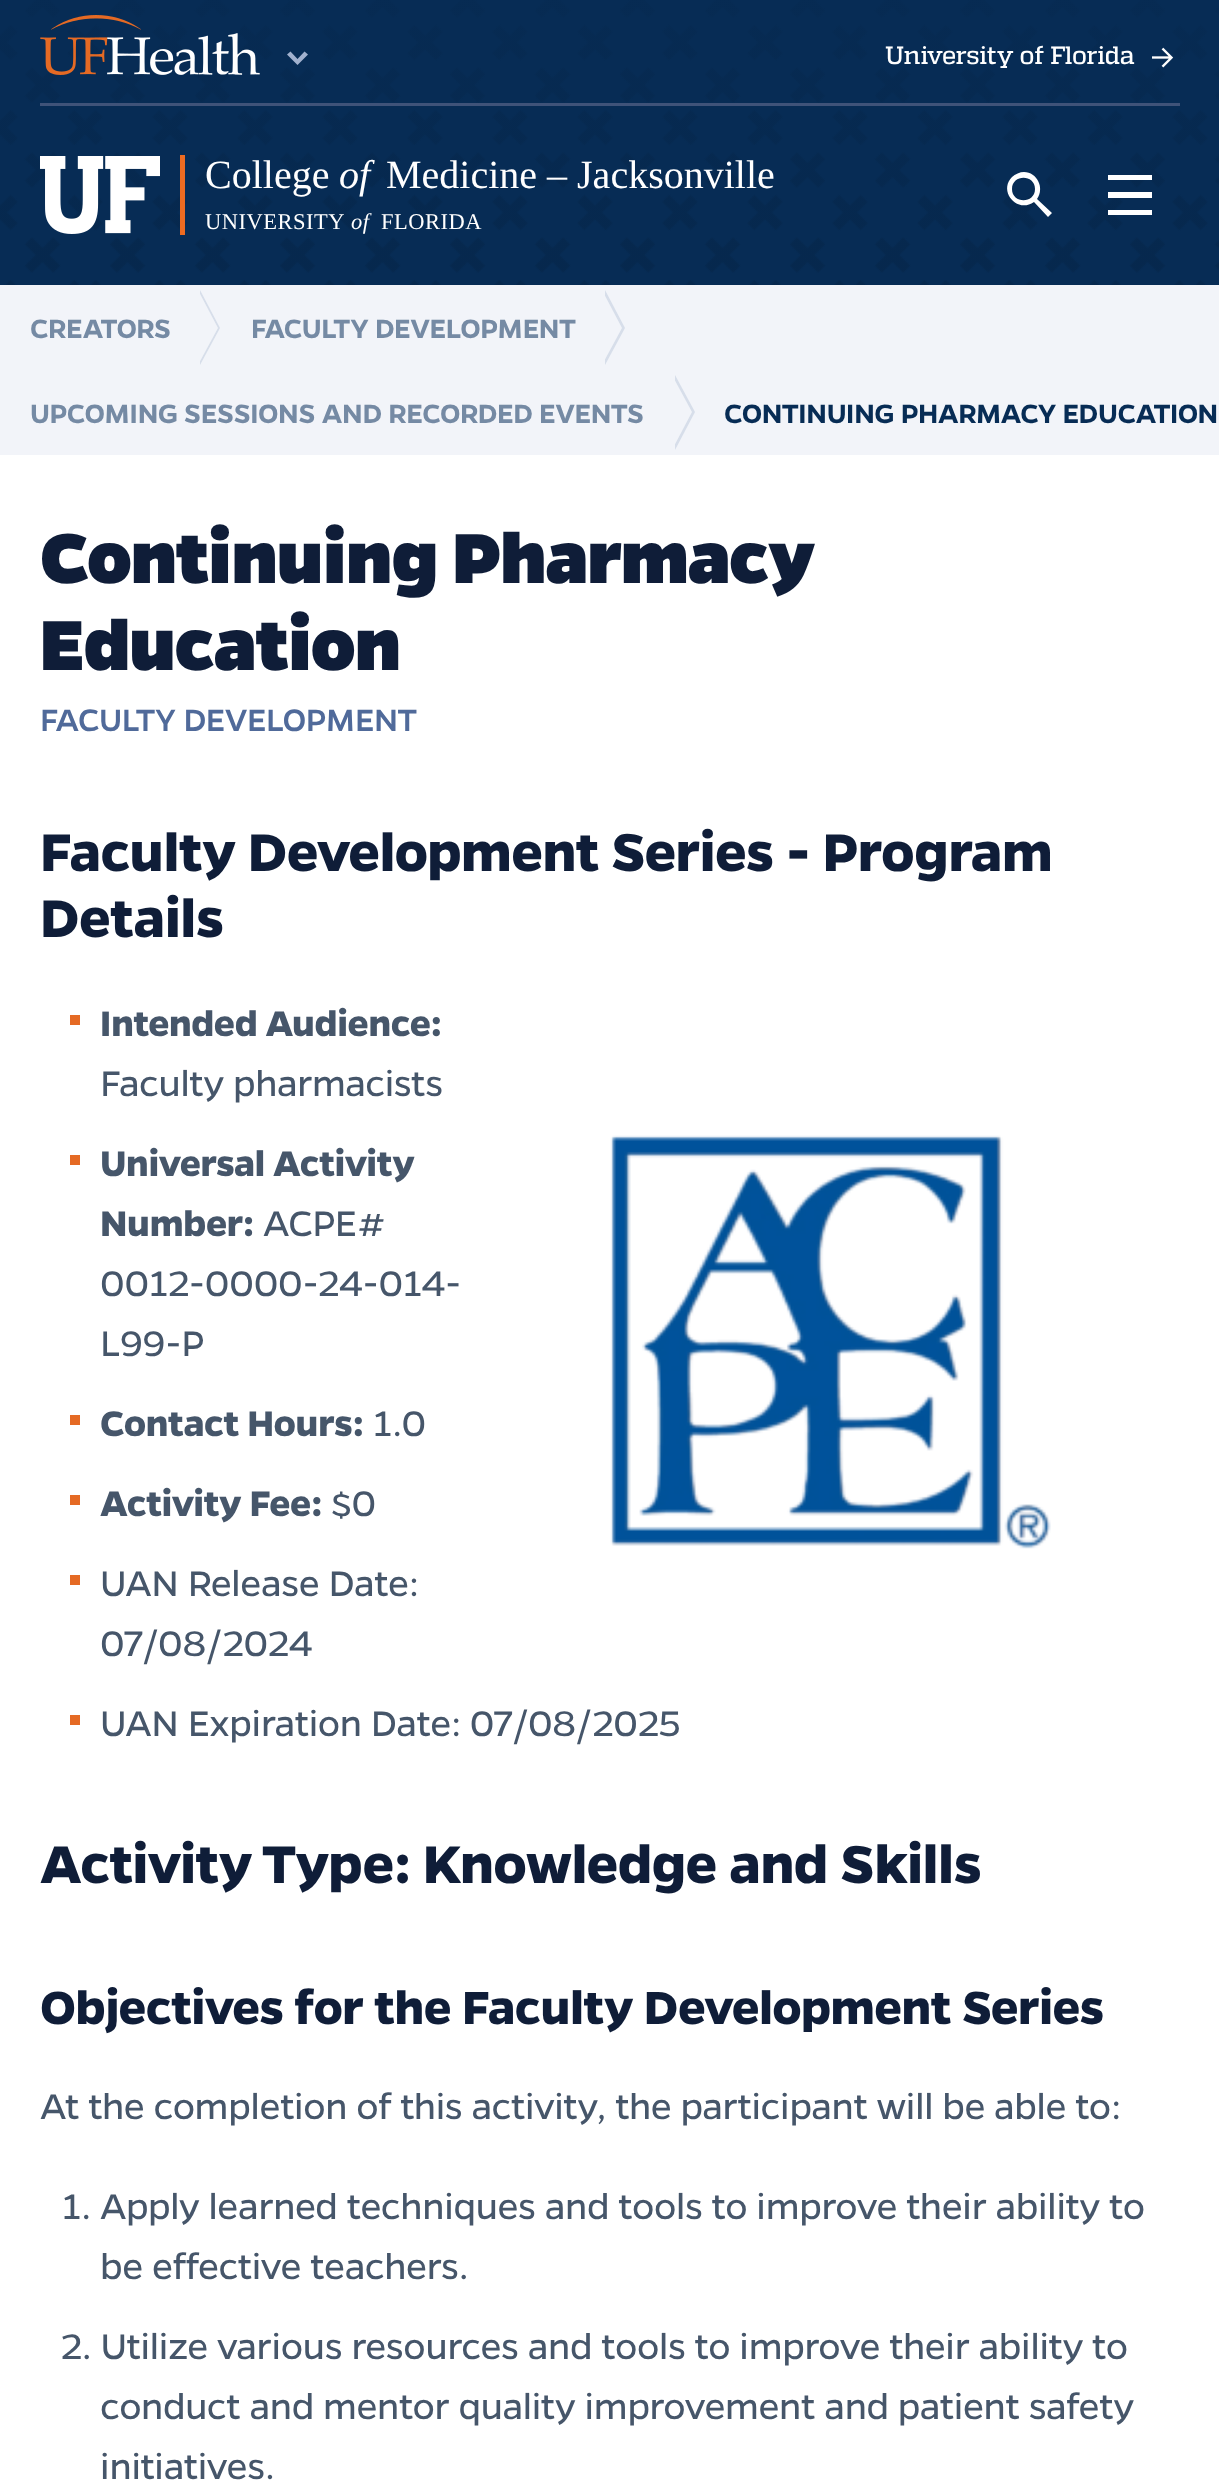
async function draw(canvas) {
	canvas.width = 1219;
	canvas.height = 2484;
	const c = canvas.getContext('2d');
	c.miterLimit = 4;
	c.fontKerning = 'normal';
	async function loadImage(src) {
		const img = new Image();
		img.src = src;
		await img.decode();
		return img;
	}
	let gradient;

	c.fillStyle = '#fff';
	c.fillRect(0, 0, 1219, 2484);
	c.fillStyle = '#072c55';
	c.fillRect(0, 0, 1219, 285);
	c.drawImage(await loadImage('img1.png'), 0, 0, 1219, 285);
	gradient = c.createLinearGradient(610, 0, 610, 285);
	gradient.addColorStop(0, '#072c55eb');
	gradient.addColorStop(1, '#072c55b8');
	c.fillStyle = gradient;
	c.fillRect(0, 0, 1219, 285);
	c.fillStyle = '#3f5379';
	c.fillRect(40, 103, 1140, 3);
	c.drawImage(await loadImage('img2.png'), 40, 15, 220, 60);
	c.fillStyle = '#a1b1ce';
	c.beginPath();
	c.moveTo(308, 54.5);
	c.lineTo(297.5, 65);
	c.lineTo(287, 54.5);
	c.lineTo(290.5, 51.5);
	c.lineTo(297.5, 59);
	c.lineTo(304.5, 51.5);
	c.closePath();
	c.fill('evenodd');
	c.font = '500 25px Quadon';
	c.fillStyle = '#fff';
	c.fillText('University of Florida', 885, 64);
	c.drawImage(await loadImage('img3.png'), 1152, 47, 22, 21);
	c.drawImage(await loadImage('img4.png'), 40, 156, 120, 78);
	c.fillStyle = '#ed6b21';
	c.fillRect(180, 155, 5, 80);
	c.font = '40px Liberation Serif';
	c.fillStyle = '#fff';
	c.fillText('College', 205, 188);
	c.font = 'italic 40px Liberation Serif';
	c.fillText('of', 339, 188);
	c.font = '40px Liberation Serif';
	c.fillText('Medicine – Jacksonville', 386, 188);
	c.letterSpacing = '0.5px';
	c.font = '22.5px Liberation Serif';
	c.fillText('UNIVERSITY', 205, 229);
	c.font = 'italic 22.5px Liberation Serif';
	c.fillText('of', 351, 229);
	c.font = '22.5px Liberation Serif';
	c.fillText('FLORIDA', 381, 229);
	c.beginPath();
	c.moveTo(1012, 189);
	c.bezierCurveTo(1012, 174, 1035, 174, 1035, 189);
	c.bezierCurveTo(1035, 204, 1012, 204, 1012, 189);
	c.closePath();
	c.moveTo(1024, 172);
	c.bezierCurveTo(1020, 172, 1015, 174, 1012, 177);
	c.bezierCurveTo(998, 191, 1017, 214, 1034, 202);
	c.lineTo(1048, 217);
	c.lineTo(1052, 213);
	c.lineTo(1037, 199);
	c.bezierCurveTo(1045, 188, 1037, 172, 1024, 172);
	c.closePath();
	c.fill('evenodd');
	c.beginPath();
	c.moveTo(1152, 180);
	c.lineTo(1108, 180);
	c.lineTo(1108, 175);
	c.lineTo(1152, 175);
	c.closePath();
	c.moveTo(1152, 198);
	c.lineTo(1108, 198);
	c.lineTo(1108, 192);
	c.lineTo(1152, 192);
	c.closePath();
	c.moveTo(1152, 215);
	c.lineTo(1108, 215);
	c.lineTo(1108, 210);
	c.lineTo(1152, 210);
	c.closePath();
	c.fill('evenodd');
	c.fillStyle = '#f2f4f9';
	c.fillRect(0, 285, 1219, 170);
	c.letterSpacing = '0px';
	c.font = '600 30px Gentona';
	c.fillStyle = '#758aa4';
	c.fillText('CREATORS', 30, 338);
	c.fillStyle = '#d7deea';
	c.beginPath();
	c.moveTo(200, 365);
	c.lineTo(200, 290);
	c.lineTo(220, 328);
	c.closePath();
	c.fill();
	c.fillStyle = '#f2f4f9';
	c.beginPath();
	c.moveTo(198, 365);
	c.lineTo(198, 290);
	c.lineTo(218, 328);
	c.closePath();
	c.fill();
	c.fillStyle = '#758aa4';
	c.fillText('FACULTY DEVELOPMENT', 251, 338);
	c.fillStyle = '#d7deea';
	c.beginPath();
	c.moveTo(605, 365);
	c.lineTo(605, 290);
	c.lineTo(625, 328);
	c.closePath();
	c.fill();
	c.fillStyle = '#f2f4f9';
	c.beginPath();
	c.moveTo(602, 365);
	c.lineTo(602, 290);
	c.lineTo(622, 328);
	c.closePath();
	c.fill();
	c.fillStyle = '#758aa4';
	c.fillText('UPCOMING SESSIONS AND RECORDED EVENTS', 30, 423);
	c.fillStyle = '#d7deea';
	c.beginPath();
	c.moveTo(675, 450);
	c.lineTo(675, 375);
	c.lineTo(695, 412);
	c.closePath();
	c.fill();
	c.fillStyle = '#f2f4f9';
	c.beginPath();
	c.moveTo(672, 450);
	c.lineTo(672, 375);
	c.lineTo(692, 412);
	c.closePath();
	c.fill();
	c.fillStyle = '#072c55';
	c.fillText('CONTINUING PHARMACY EDUCATION', 724, 423);
	c.font = '900 80px Gentona';
	c.fillStyle = '#0f1d38';
	c.fillText('Continuing Pharmacy', 40, 583);
	c.fillText('Education', 40, 670);
	c.font = '500 35px Gentona';
	c.fillStyle = '#506a9a';
	c.fillText('FACULTY DEVELOPMENT', 40, 731);
	c.font = 'bold 60px Gentona';
	c.fillStyle = '#0f1d38';
	c.fillText('Faculty Development Series - Program', 40, 871);
	c.fillText('Details', 40, 937);
	c.fillStyle = '#e56a24';
	c.fillRect(70, 1015, 10, 10);
	c.font = 'bold 40px Gentona';
	c.fillStyle = '#46566a';
	c.fillText('Intended Audience:', 100, 1036);
	c.font = '40px Gentona';
	c.fillText('Faculty pharmacists', 100, 1096);
	c.fillStyle = '#e56a24';
	c.fillRect(70, 1155, 10, 10);
	c.font = 'bold 40px Gentona';
	c.fillStyle = '#46566a';
	c.fillText('Universal Activity', 100, 1176);
	c.fillText('Number:', 100, 1236);
	c.font = '40px Gentona';
	for (const [text, x, y] of [
		['ACPE#', 263, 1236],
		['0012-0000-24-014-', 100, 1296],
		['L99-P', 100, 1356],
	]) {
		c.fillText(text, x, y);
	}
	c.fillStyle = '#e56a24';
	c.fillRect(70, 1415, 10, 10);
	c.font = 'bold 40px Gentona';
	c.fillStyle = '#46566a';
	c.fillText('Contact Hours:', 100, 1436);
	c.font = '40px Gentona';
	c.fillText('1.0', 373, 1436);
	c.fillStyle = '#e56a24';
	c.fillRect(70, 1495, 10, 10);
	c.font = 'bold 40px Gentona';
	c.fillStyle = '#46566a';
	c.fillText('Activity Fee:', 100, 1516);
	c.font = '40px Gentona';
	c.fillText('$0', 331, 1516);
	c.fillStyle = '#e56a24';
	c.fillRect(70, 1575, 10, 10);
	c.fillStyle = '#46566a';
	c.fillText('UAN Release Date:', 100, 1596);
	c.fillText('07/08/2024', 100, 1656);
	c.fillStyle = '#e56a24';
	c.fillRect(70, 1715, 10, 10);
	c.fillStyle = '#46566a';
	c.fillText('UAN Expiration Date: 07/08/2025', 100, 1736);
	c.drawImage(await loadImage('img5.png'), 610, 1135, 441, 414);
	c.font = 'bold 60px Gentona';
	c.fillStyle = '#0f1d38';
	c.fillText('Activity Type: Knowledge and Skills', 40, 1883);
	c.font = 'bold 52.5px Gentona';
	c.fillText('Objectives for the Faculty Development Series', 40, 2024);
	c.font = '40px Gentona';
	c.fillStyle = '#46566a';
	for (const [text, x, y] of [
		['At the completion of this activity, the participant will be able to:', 40, 2119],
		['1. Apply learned techniques and tools to improve their ability to', 62, 2219],
		['be effective teachers.', 100, 2279],
		['2. Utilize various resources and tools to improve their ability to', 61, 2359],
		['conduct and mentor quality improvement and patient safety', 100, 2419],
		['initiatives.', 100, 2479],
	]) {
		c.fillText(text, x, y);
	}
}

draw(document.querySelector('canvas'));
